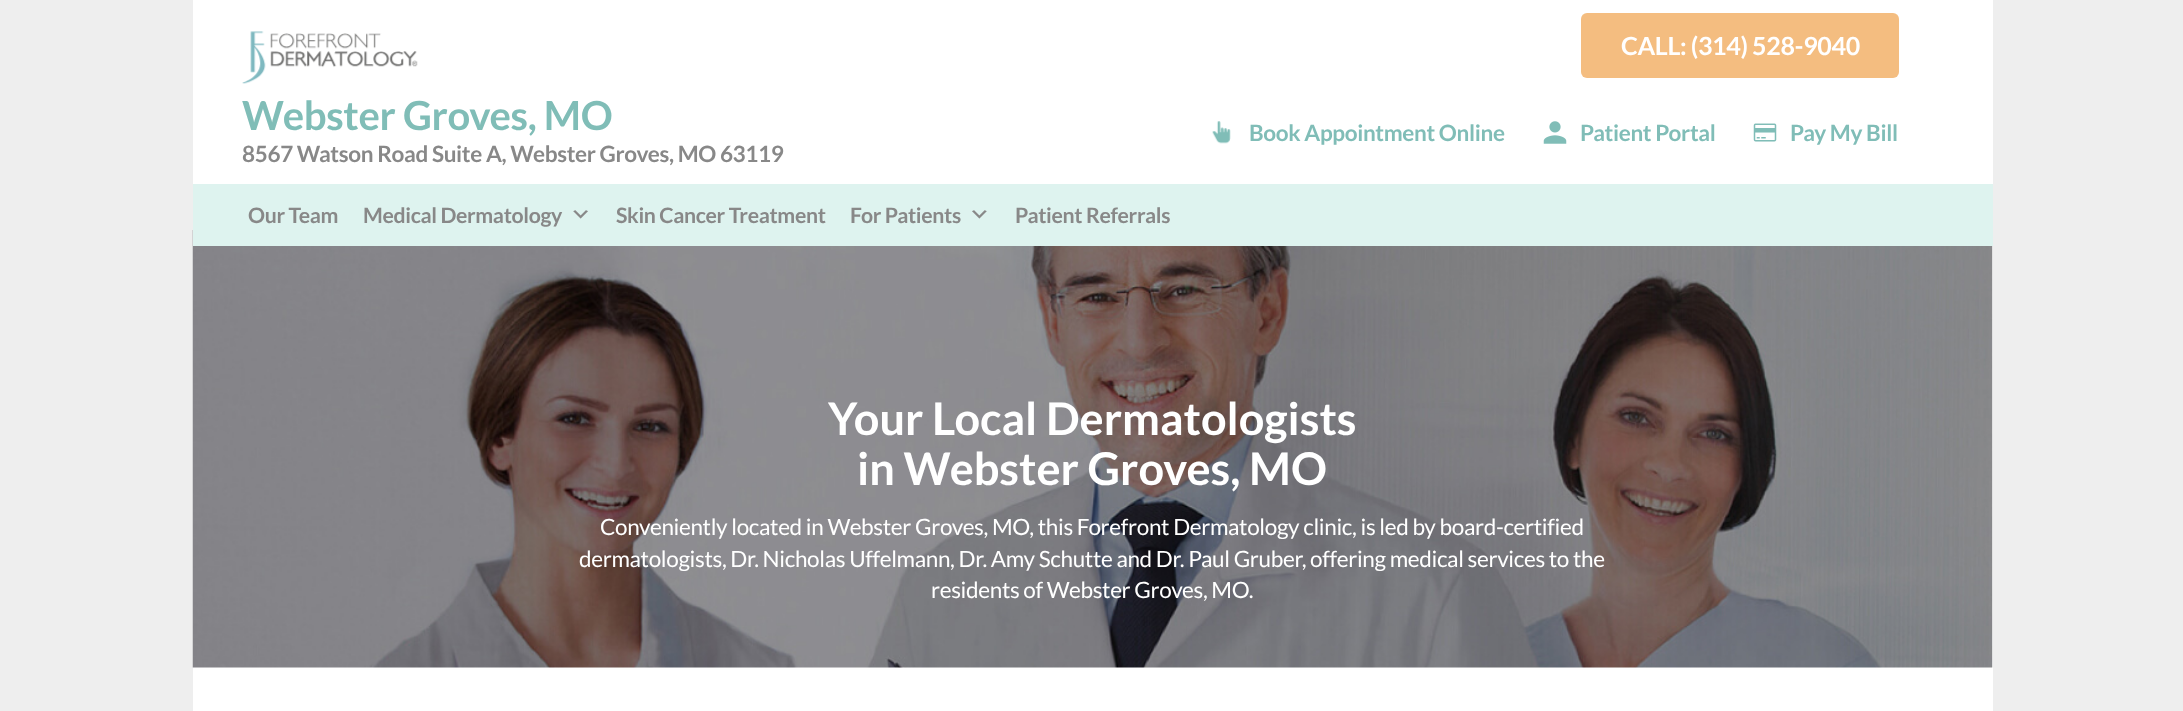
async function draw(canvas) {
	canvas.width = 2183;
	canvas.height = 711;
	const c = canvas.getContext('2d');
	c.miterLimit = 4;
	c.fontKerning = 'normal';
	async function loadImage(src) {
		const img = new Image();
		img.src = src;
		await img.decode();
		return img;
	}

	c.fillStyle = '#eee';
	c.fillRect(0, 0, 2183, 711);
	c.fillStyle = '#fff';
	c.fillRect(193, 0, 1800, 184);
	c.fillStyle = '#f4bd80';
	c.beginPath();
	c.roundRect(1581, 13, 318, 65, 6);
	c.fill();
	c.letterSpacing = '-0.34px';
	c.font = 'bold 25px Lato';
	c.fillStyle = '#fff';
	c.fillText('CALL: (314) 528-9040', 1621, 55);
	c.drawImage(await loadImage('img1.png'), 242, 31, 176, 53);
	c.font = 'bold 40px Lato';
	c.fillStyle = '#80bdb7';
	c.fillText('Webster Groves, MO', 242, 130);
	c.font = 'bold 22.5px Lato';
	c.fillStyle = '#888';
	c.fillText('8567 Watson Road Suite A, Webster Groves, MO 63119', 242, 162);
	c.drawImage(await loadImage('img2.png'), 1212, 121, 19, 23);
	c.fillStyle = '#80bdb7';
	c.fillText('Book Appointment Online', 1249, 141);
	c.drawImage(await loadImage('img3.png'), 1543, 121, 24, 23);
	c.fillText('Patient Portal', 1580, 141);
	c.drawImage(await loadImage('img4.png'), 1753, 123, 24, 19);
	c.fillText('Pay My Bill', 1790, 141);
	c.fillStyle = '#fff';
	c.fillRect(193, 246, 1800, 465);
	c.drawImage(await loadImage('img7.png'), 192, 230, 1801, 438);
	c.fillStyle = '#def3ef';
	c.fillRect(193, 184, 1800, 62);
	c.font = 'bold 21.25px Lato';
	c.fillStyle = '#888';
	c.fillText('Our Team', 248, 223);
	c.fillText('Medical Dermatology', 363, 223);
	c.drawImage(await loadImage('img5.png'), 573, 210, 15, 9);
	c.fillText('Skin Cancer Treatment', 616, 223);
	c.fillText('For Patients', 850, 223);
	c.drawImage(await loadImage('img6.png'), 972, 210, 15, 9);
	c.fillText('Patient Referrals', 1015, 223);
	c.letterSpacing = '0px';
	c.font = 'bold 45px Lato';
	c.fillStyle = '#fff';
	c.fillText('Your Local Dermatologists', 828, 435);
	c.fillText('in Webster Groves, MO', 857, 485);
	c.letterSpacing = '-0.34px';
	c.font = '22.5px Lato';
	for (const [text, x, y] of [
		['Conveniently located in Webster Groves, MO, this Forefront Dermatology clinic, is led by board-certified', 600, 535],
		['dermatologists, Dr. Nicholas Uffelmann, Dr. Amy Schutte and Dr. Paul Gruber, offering medical services to the', 579, 567],
		['residents of Webster Groves, MO.', 931, 598],
	]) {
		c.fillText(text, x, y);
	}
}

draw(document.querySelector('canvas'));
